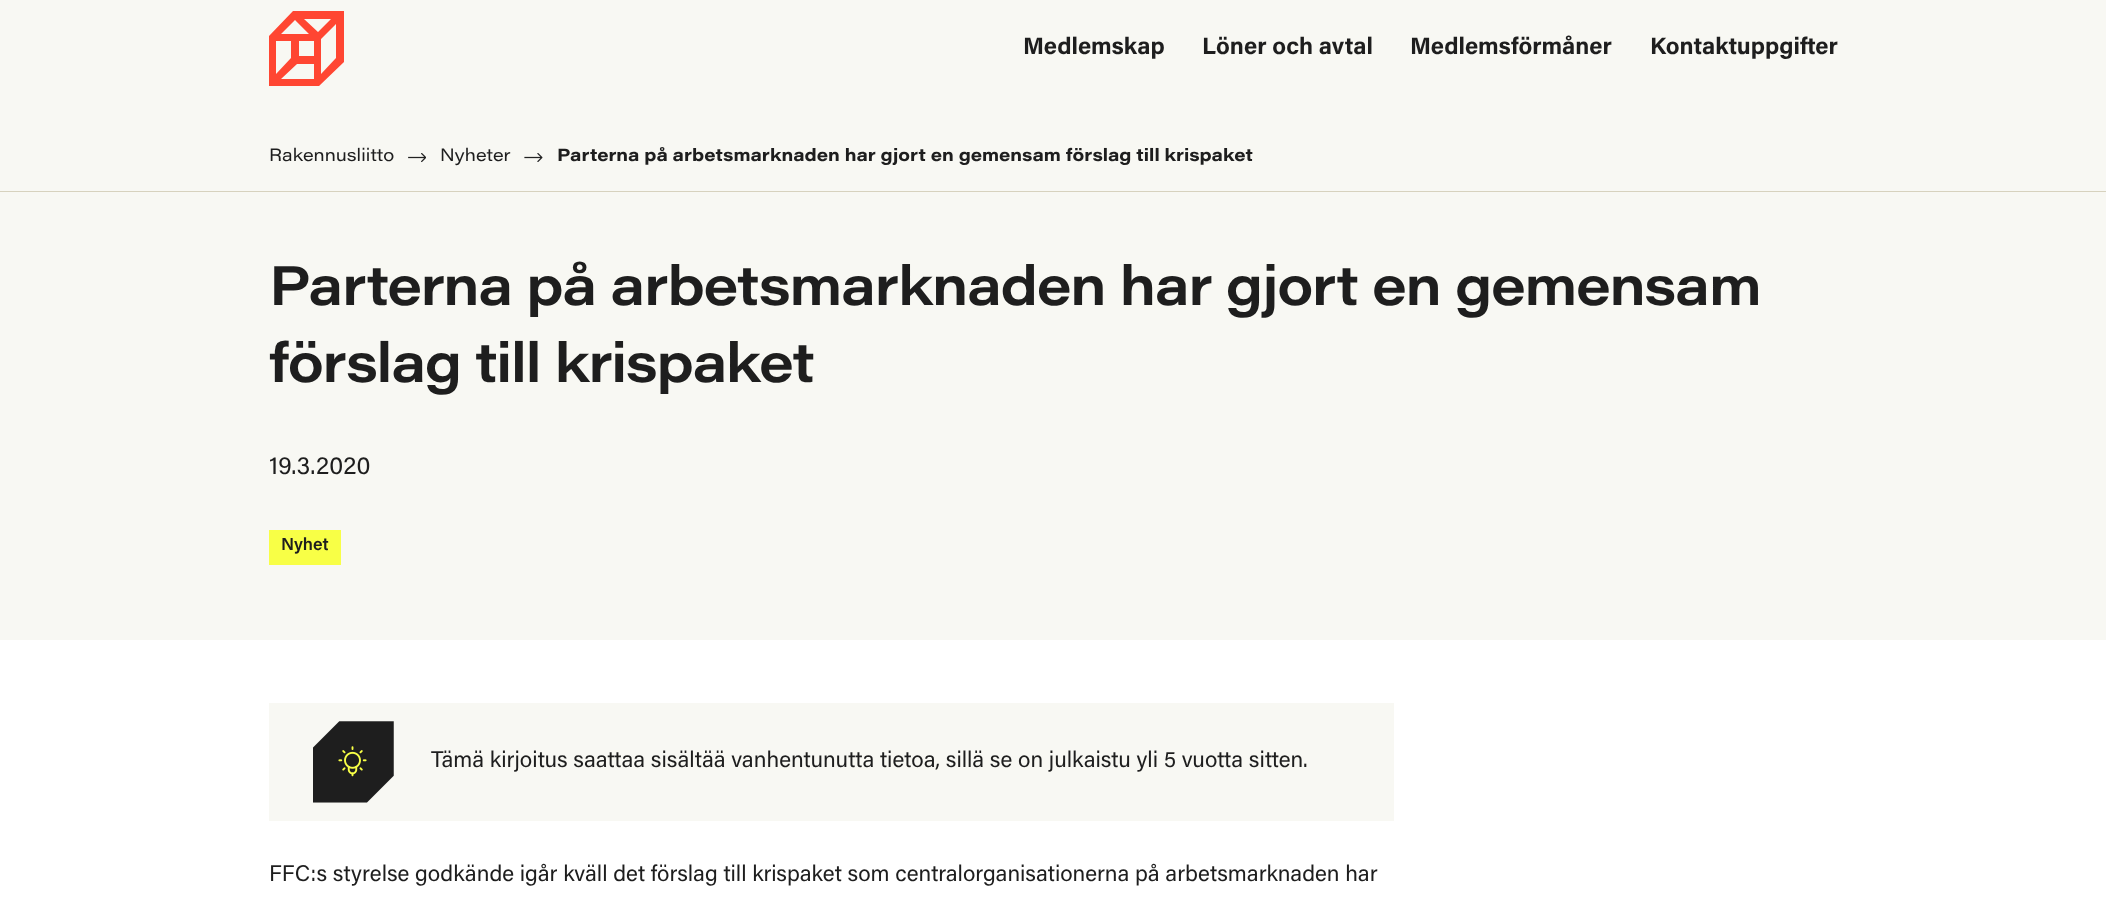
async function draw(canvas) {
	canvas.width = 2106;
	canvas.height = 907;
	const c = canvas.getContext('2d');
	c.miterLimit = 4;
	c.fontKerning = 'normal';
	async function loadImage(src) {
		const img = new Image();
		img.src = src;
		await img.decode();
		return img;
	}

	c.fillStyle = '#fff';
	c.fillRect(0, 0, 2106, 907);
	c.fillStyle = '#f8f8f3';
	c.fillRect(0, 0, 2106, 640);
	c.fillStyle = '#ff4632';
	c.beginPath();
	c.moveTo(344, 62);
	c.lineTo(344, 11);
	c.lineTo(293, 11);
	c.lineTo(269, 36);
	c.lineTo(269, 86);
	c.lineTo(319, 86);
	c.closePath();
	c.moveTo(331, 19);
	c.lineTo(304, 19);
	c.lineTo(318, 32);
	c.closePath();
	c.moveTo(295, 20);
	c.lineTo(281, 34);
	c.lineTo(309, 34);
	c.closePath();
	c.moveTo(336, 58);
	c.lineTo(336, 24);
	c.lineTo(321, 39);
	c.lineTo(321, 74);
	c.closePath();
	c.moveTo(276, 41);
	c.lineTo(276, 74);
	c.lineTo(291, 58);
	c.lineTo(291, 41);
	c.closePath();
	c.moveTo(314, 41);
	c.lineTo(299, 41);
	c.lineTo(299, 56);
	c.lineTo(314, 56);
	c.closePath();
	c.moveTo(314, 79);
	c.lineTo(314, 64);
	c.lineTo(297, 64);
	c.lineTo(281, 79);
	c.closePath();
	c.fill('evenodd');
	c.font = 'bold 23.75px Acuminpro';
	c.fillStyle = '#1e1e1e';
	for (const [text, x, y] of [
		['Medlemskap', 1023, 54],
		['Löner och avtal', 1202, 54],
		['Medlemsförmåner', 1410, 54],
		['Kontaktuppgifter', 1650, 54],
	]) {
		c.fillText(text, x, y);
	}
	c.fillStyle = '#d7d2be';
	c.fillRect(0, 191, 2106, 1);
	c.font = '17.5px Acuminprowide';
	c.fillStyle = '#1e1e1e';
	c.fillText('Rakennusliitto', 269, 161);
	c.drawImage(await loadImage('img1.png'), 408, 153, 18, 10);
	c.fillText('Nyheter', 440, 161);
	c.drawImage(await loadImage('img2.png'), 524, 153, 19, 9);
	c.font = 'bold 17.5px Acuminprowide';
	c.fillText('Parterna på arbetsmarknaden har gjort en gemensam förslag till krispaket', 557, 161);
	c.letterSpacing = '-1.25px';
	c.font = '600 55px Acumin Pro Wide';
	c.fillText('Parterna på arbetsmarknaden har gjort en gemensam', 269, 305);
	c.fillText('förslag till krispaket', 269, 382);
	c.letterSpacing = '0px';
	c.font = '25px Acuminpro';
	c.fillText('19.3.2020', 269, 474);
	c.fillStyle = '#f8ff46';
	c.fillRect(269, 530, 72, 35);
	c.font = '600 17.5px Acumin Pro';
	c.fillStyle = '#1e1e1e';
	c.fillText('Nyhet', 281, 550);
	c.fillStyle = '#f8f8f3';
	c.fillRect(269, 703, 1125, 118);
	c.drawImage(await loadImage('img3.png'), 313, 721, 81, 82);
	c.font = '22.5px Acuminpro';
	c.fillStyle = '#1e1e1e';
	c.fillText('Tämä kirjoitus saattaa sisältää vanhentunutta tietoa, sillä se on julkaistu yli 5 vuotta sitten.', 431, 767);
	c.fillText('FFC:s styrelse godkände igår kväll det förslag till krispaket som centralorganisationerna på arbetsmarknaden har', 269, 881);
}

draw(document.querySelector('canvas'));
